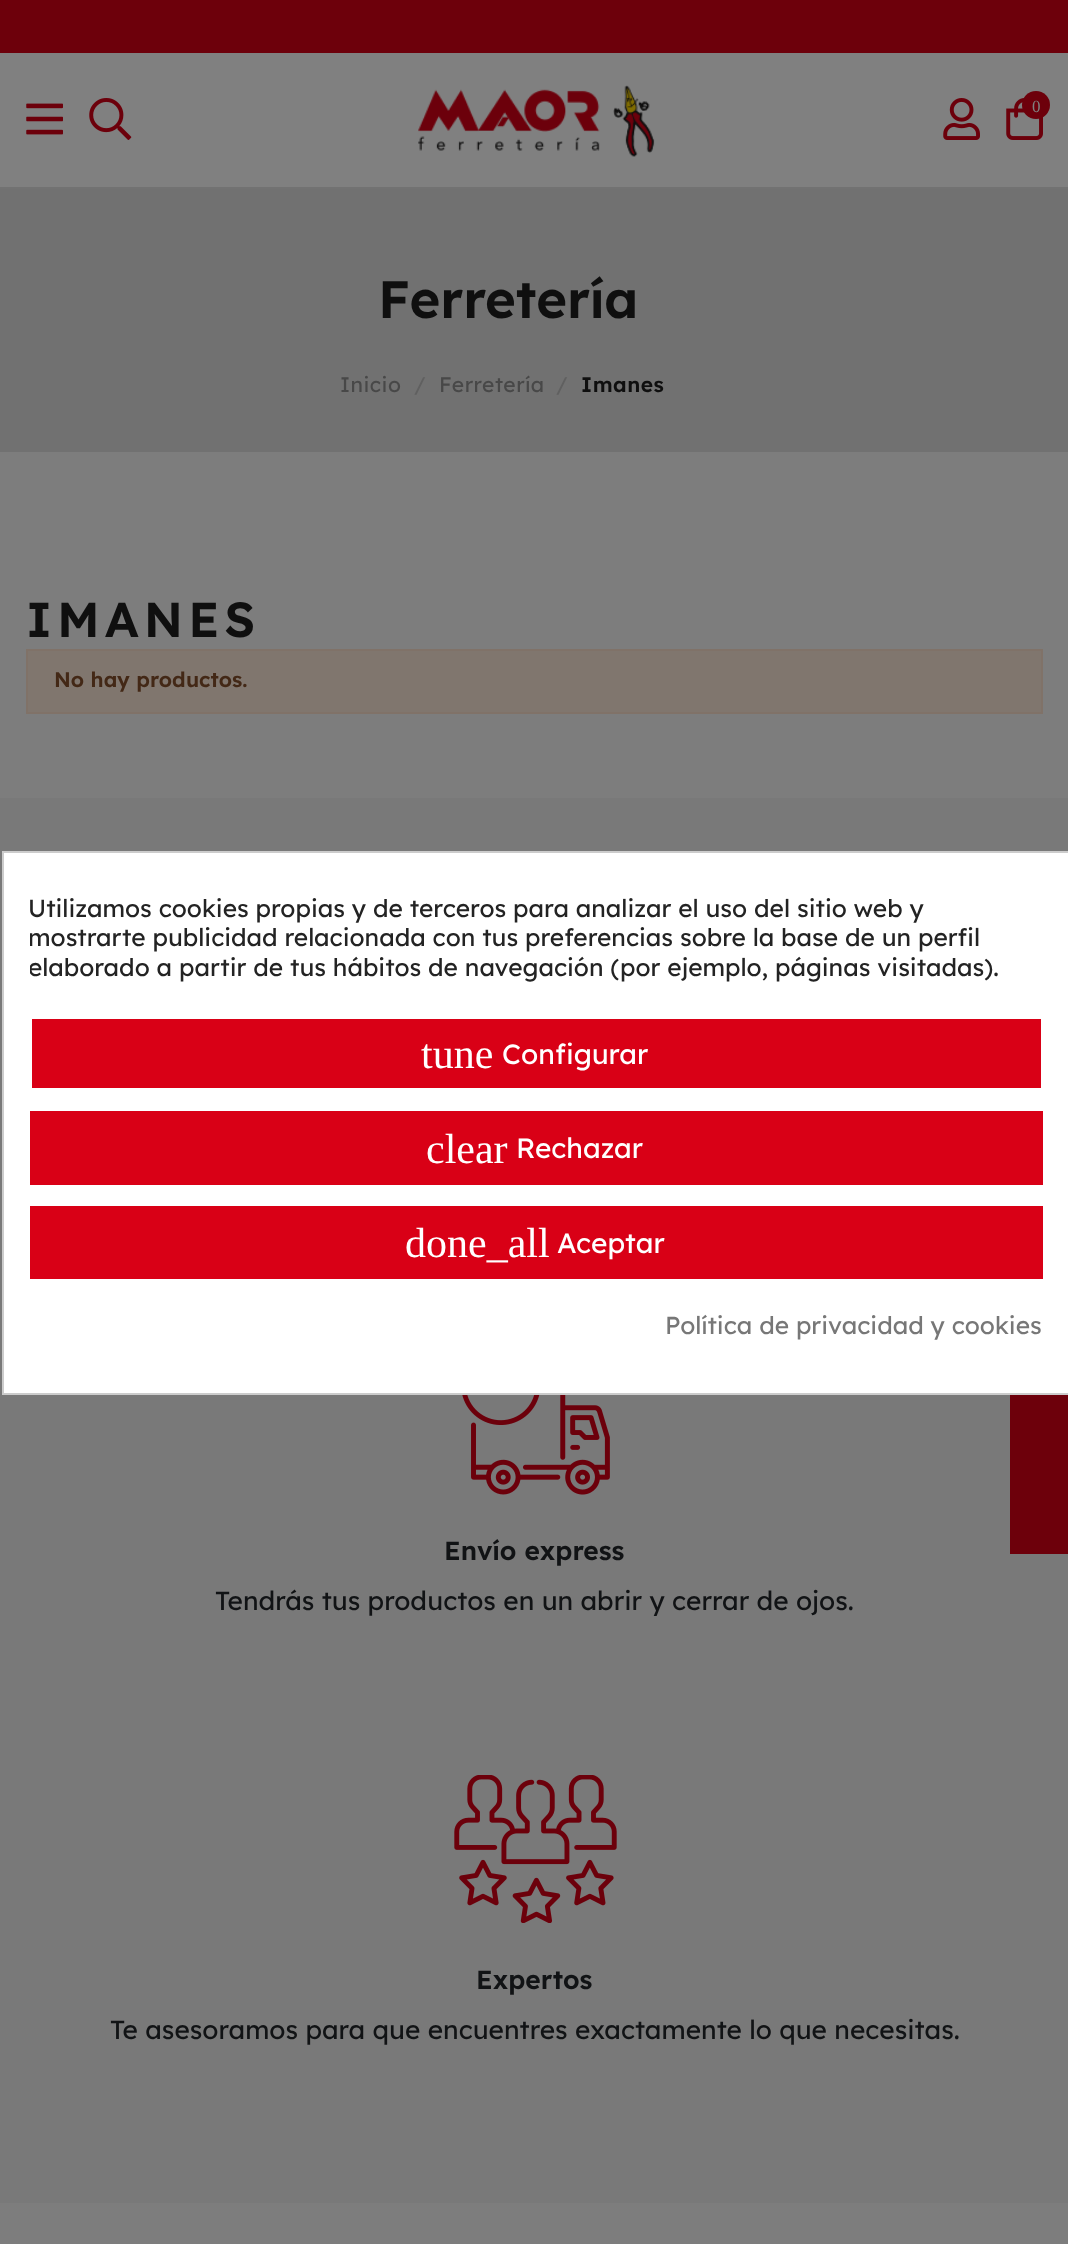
async function draw(canvas) {
	canvas.width = 1068;
	canvas.height = 2244;
	const c = canvas.getContext('2d');
	c.miterLimit = 4;
	c.fontKerning = 'normal';
	async function loadImage(src) {
		const img = new Image();
		img.src = src;
		await img.decode();
		return img;
	}

	c.fillStyle = '#7d7d7d';
	c.fillRect(0, 0, 1068, 2244);
	for (const [x, y, w, h, color] of [
		[0, 53, 1068, 134, '#808080'],
		[0, 0, 1068, 53, '#6d000b'],
		[0, 187, 1068, 2, '#727272'],
	]) {
		c.fillStyle = color;
		c.fillRect(x, y, w, h);
	}
	c.drawImage(await loadImage('img1.png'), 26, 103, 37, 32);
	c.drawImage(await loadImage('img2.png'), 89, 98, 43, 42);
	c.drawImage(await loadImage('img3.png'), 418, 85, 237, 72);
	c.drawImage(await loadImage('img4.png'), 943, 98, 37, 42);
	c.drawImage(await loadImage('img5.png'), 1006, 98, 37, 42);
	c.fillStyle = '#6d000b';
	c.beginPath();
	c.arc(1036, 105, 14, 0, 2 * Math.PI);
	c.fill();
	c.font = '17px Liberation Serif';
	c.fillStyle = '#808080';
	c.fillText('0', 1032, 112);
	c.fillStyle = '#717171';
	c.fillRect(0, 189, 1068, 263);
	c.font = '600 52.5px Lexend';
	c.fillStyle = '#0f0f0f';
	c.fillText('Ferretería', 378, 318);
	c.letterSpacing = '0.5px';
	c.font = '21px Lexend';
	c.fillStyle = '#484848';
	c.fillText('Inicio', 340, 392);
	c.fillStyle = '#606060';
	c.fillText('/', 414, 392);
	c.fillStyle = '#484848';
	c.fillText('Ferretería', 439, 392);
	c.fillStyle = '#606060';
	c.fillText('/', 556, 392);
	c.font = '600 21px Lexend';
	c.fillStyle = '#0f0f0f';
	c.fillText('Imanes', 581, 392);
	c.letterSpacing = '5px';
	c.font = '600 49px Lexend';
	c.fillText('IMANES', 26, 637);
	c.fillStyle = '#80766e';
	c.beginPath();
	c.rect(27, 650, 1015, 63);
	c.fill();
	c.strokeStyle = '#807268';
	c.lineWidth = 2;
	c.stroke();
	c.letterSpacing = '0px';
	c.font = '600 21px Lexend';
	c.fillStyle = '#432816';
	c.fillText('No hay productos.', 54, 687);
	c.fillStyle = '#797979';
	c.fillRect(0, 798, 1068, 1405);
	c.drawImage(await loadImage('img6.png'), 462, 1395, 148, 100);
	c.font = '600 26.25px Lexend';
	c.fillStyle = '#111315';
	c.fillText('Envío express', 444, 1560);
	c.font = '26.25px Lexend';
	c.fillText('Tendrás tus productos en un abrir y cerrar de ojos.', 215, 1610);
	c.drawImage(await loadImage('img7.png'), 454, 1775, 163, 148);
	c.font = '600 26.25px Lexend';
	c.fillText('Expertos', 476, 1989);
	c.font = '26.25px Lexend';
	c.fillText('Te asesoramos para que encuentres exactamente lo que necesitas.', 110, 2039);
	c.fillStyle = '#fff';
	c.beginPath();
	c.rect(3, 852, 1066, 542);
	c.fill();
	c.strokeStyle = '#ccc';
	c.stroke();
	c.font = '24.5px Lexend';
	c.fillStyle = '#232323';
	c.fillText('Utilizamos cookies propias y de terceros para analizar el uso del sitio web y', 28, 917);
	c.save();
	c.beginPath();
	c.rect(30, 894, 1013, 88);
	c.clip();
	c.fillText('mostrarte publicidad relacionada con tus preferencias sobre la base de un perfil', 28, 946);
	c.fillText('elaborado a partir de tus hábitos de navegación (por ejemplo, páginas visitadas).', 28, 976);
	c.restore();
	c.fillStyle = '#d90016';
	c.fillRect(32, 1019, 1009, 69);
	c.font = '42px Liberation Serif';
	c.fillStyle = '#fff';
	c.fillText('tune', 421, 1068);
	c.font = '28px Lexend';
	c.fillText('Configurar', 502, 1064);
	c.fillStyle = '#d90016';
	c.fillRect(30, 1111, 1013, 74);
	c.font = '42px Liberation Serif';
	c.fillStyle = '#fff';
	c.fillText('clear', 426, 1163);
	c.font = '28px Lexend';
	c.fillText('Rechazar', 516, 1158);
	c.fillStyle = '#d90016';
	c.fillRect(30, 1206, 1013, 73);
	c.font = '42px Liberation Serif';
	c.fillStyle = '#fff';
	c.fillText('done_all', 405, 1257);
	c.font = '28px Lexend';
	c.fillText('Aceptar', 557, 1253);
	c.font = '24.5px Lexend';
	c.fillStyle = '#777';
	c.fillText('Política de privacidad y cookies', 665, 1334);
	c.fillStyle = '#6d000b';
	c.fillRect(1010, 1395, 58, 159);
}

draw(document.querySelector('canvas'));
